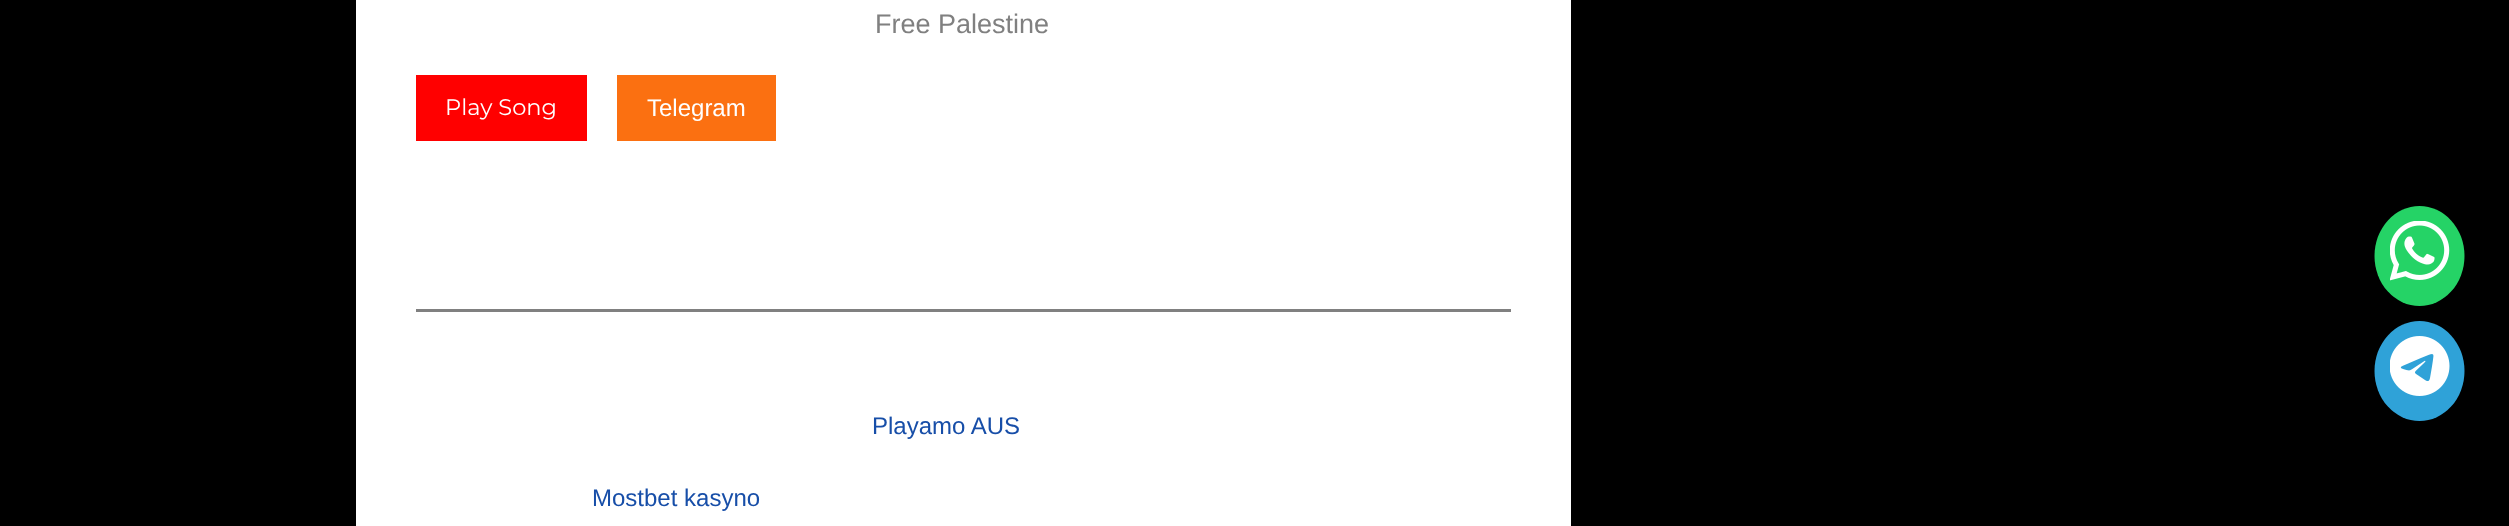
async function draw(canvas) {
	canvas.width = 2509;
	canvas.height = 526;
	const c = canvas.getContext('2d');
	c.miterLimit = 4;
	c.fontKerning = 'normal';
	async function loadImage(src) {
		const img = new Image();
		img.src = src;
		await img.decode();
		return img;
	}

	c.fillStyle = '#000';
	c.fillRect(0, 0, 2509, 526);
	c.fillStyle = '#fff';
	c.fillRect(356, 0, 1215, 526);
	c.font = '27px Liberation Sans';
	c.fillStyle = '#808080';
	c.fillText('Free Palestine', 875, 33);
	c.fillStyle = '#f00';
	c.fillRect(416, 75, 171, 66);
	c.font = '22.5px Montserrat';
	c.fillStyle = '#fff';
	c.fillText('Play Song', 445, 115);
	c.fillStyle = '#fb7011';
	c.fillRect(617, 75, 159, 66);
	c.font = '24px Liberation Sans';
	c.fillStyle = '#fff';
	c.fillText('Telegram', 647, 116);
	c.fillStyle = '#808080';
	c.fillRect(416, 309, 1095, 3);
	c.fillStyle = '#174ea8';
	c.fillText('Playamo AUS', 872, 434);
	c.fillText('Mostbet kasyno', 592, 506);
	c.fillStyle = '#25d366';
	c.beginPath();
	c.ellipse(2419.5, 256, 45, 50, 0, 0, 2 * Math.PI);
	c.fill();
	c.drawImage(await loadImage('img1.png'), 2390, 221, 60, 60);
	c.fillStyle = '#2fa2d8';
	c.beginPath();
	c.ellipse(2419.5, 371, 45, 50, 0, 0, 2 * Math.PI);
	c.fill();
	c.drawImage(await loadImage('img2.png'), 2390, 336, 60, 60);
}

draw(document.querySelector('canvas'));
